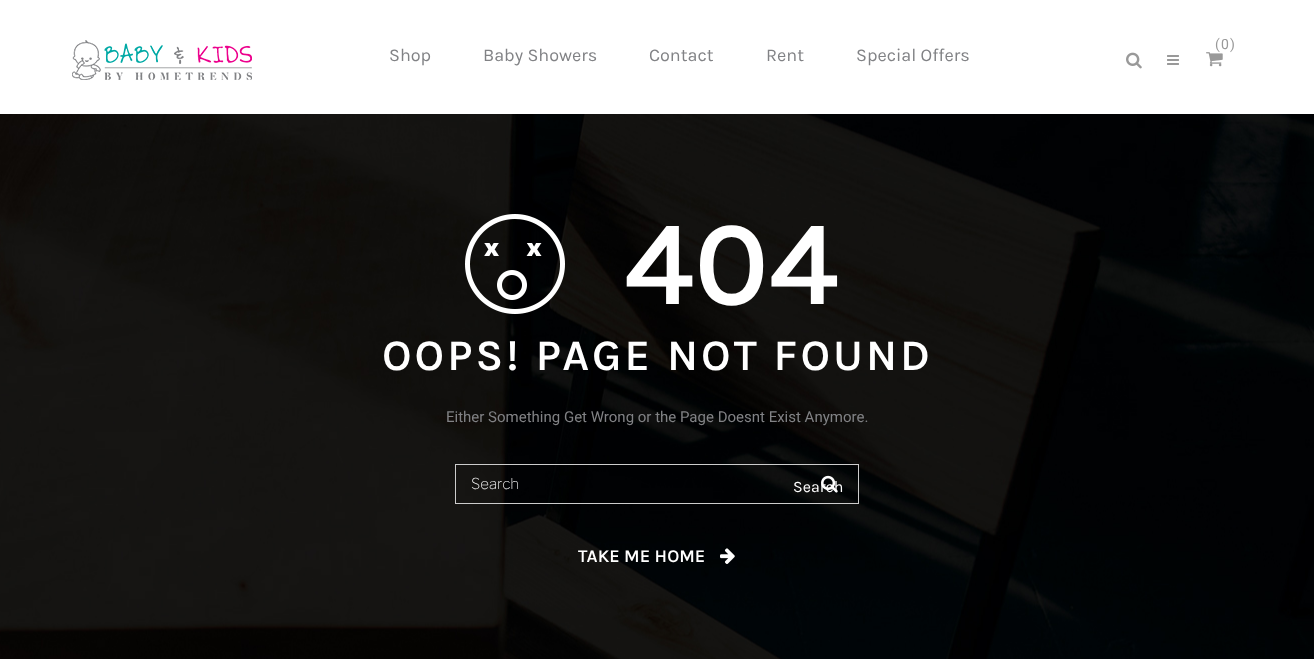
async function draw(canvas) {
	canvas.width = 1314;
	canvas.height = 668;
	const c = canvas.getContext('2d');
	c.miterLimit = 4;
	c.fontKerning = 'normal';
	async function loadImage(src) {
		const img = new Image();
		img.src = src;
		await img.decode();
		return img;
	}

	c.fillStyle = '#fff';
	c.fillRect(0, 0, 1314, 668);
	c.drawImage(await loadImage('img1.png'), 72, 40, 180, 40);
	c.font = '18px Karla';
	c.fillStyle = '#818285';
	for (const [text, x, y] of [
		['Shop', 389, 61],
		['Baby Showers', 483, 61],
		['Contact', 649, 61],
		['Rent', 766, 61],
		['Special Offers', 856, 61],
	]) {
		c.fillText(text, x, y);
	}
	c.drawImage(await loadImage('img2.png'), 1126, 52, 16, 17);
	c.drawImage(await loadImage('img3.png'), 1167, 55, 12, 10);
	c.drawImage(await loadImage('img4.png'), 1206, 52, 17, 15);
	c.font = '14px Roboto';
	c.fillStyle = '#999';
	for (const [text, x, y] of [
		['(', 1215, 49],
		['0', 1221, 49],
		[')', 1230, 49],
	]) {
		c.fillText(text, x, y);
	}
	c.drawImage(await loadImage('img5.png'), 0, 114, 1314, 545);
	c.drawImage(await loadImage('img6.png'), 465, 214, 100, 100);
	c.font = '600 120px Karla';
	c.fillStyle = '#fff';
	c.fillText('404', 624, 304);
	c.letterSpacing = '3px';
	c.font = '600 44px Karla';
	c.fillText('OOPS! PAGE NOT FOUND', 382, 370);
	c.letterSpacing = '0px';
	c.font = '15px Roboto';
	c.fillStyle = '#818285';
	c.fillText('Either Something Get Wrong or the Page Doesnt Exist Anymore.', 446, 422);
	c.strokeStyle = '#ccc';
	c.strokeRect(455.5, 464.5, 403, 39);
	c.font = '100 15px Libre Franklin';
	c.fillStyle = '#fff';
	c.fillText('Search', 471, 489);
	c.font = '16px Karla';
	c.fillText('Search', 793, 492);
	c.drawImage(await loadImage('img7.png'), 821, 475, 17, 18);
	c.font = '600 18px Karla';
	c.fillText('TAKE ME HOME', 578, 562);
	c.drawImage(await loadImage('img8.png'), 720, 548, 15, 16);
}

draw(document.querySelector('canvas'));
